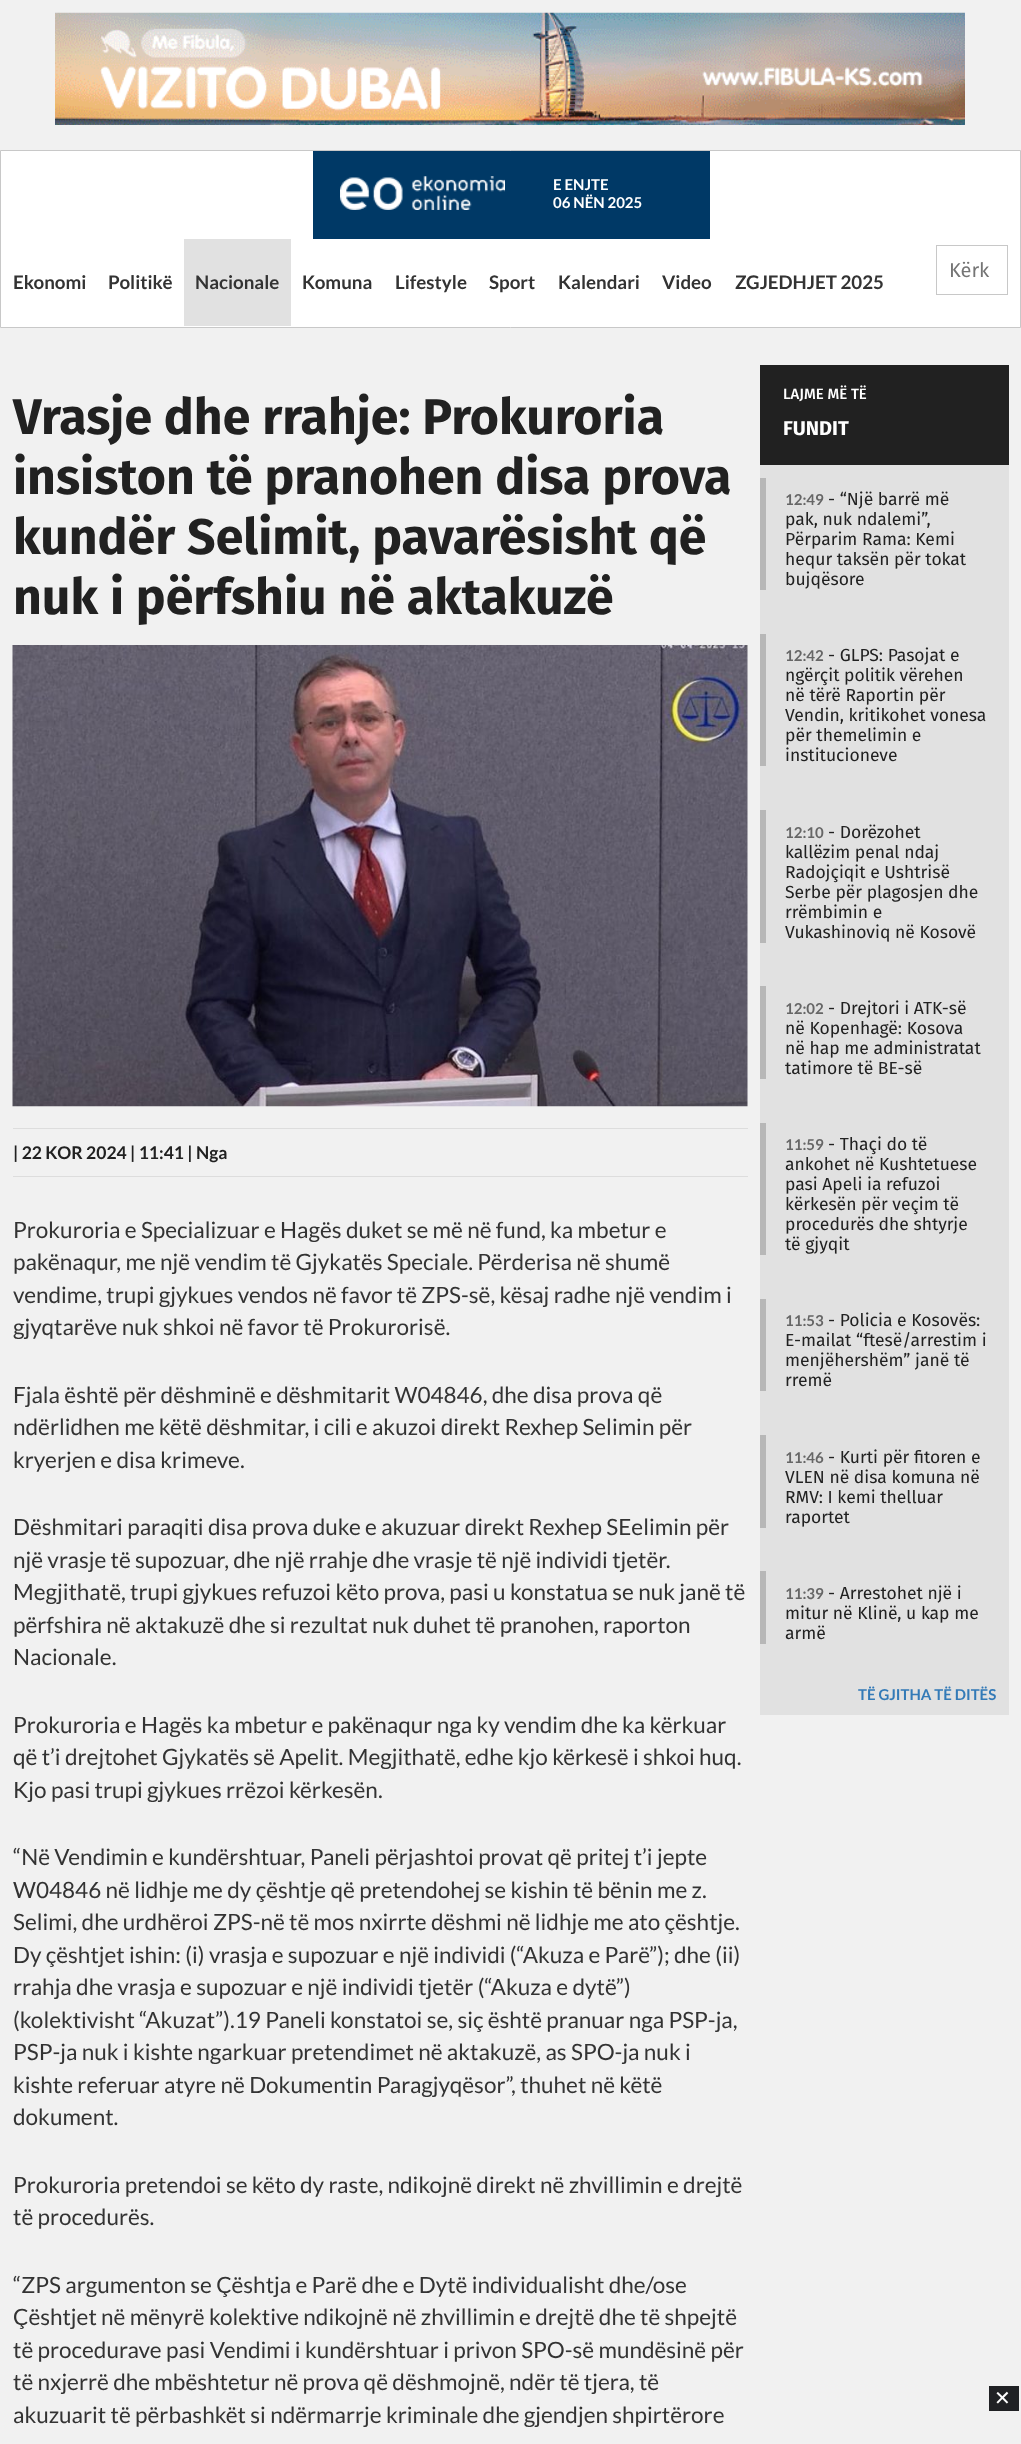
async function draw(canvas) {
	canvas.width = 1021;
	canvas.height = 2444;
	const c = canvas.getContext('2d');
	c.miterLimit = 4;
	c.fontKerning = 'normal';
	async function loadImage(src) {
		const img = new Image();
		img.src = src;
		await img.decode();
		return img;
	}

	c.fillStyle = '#f1f1f1';
	c.fillRect(0, 0, 1021, 2444);
	c.drawImage(await loadImage('img1.png'), 55, 12, 910, 113);
	c.fillStyle = '#fff';
	c.beginPath();
	c.rect(0.5, 150.5, 1020, 177);
	c.fill();
	c.strokeStyle = '#c8c8c8';
	c.stroke();
	c.fillStyle = '#003966';
	c.fillRect(313, 151, 397, 88);
	c.drawImage(await loadImage('img2.png'), 340, 176, 165, 34);
	c.font = 'bold 15px Lato';
	c.fillStyle = '#fff';
	c.fillText('E ENJTE', 553, 190);
	c.fillText('06 NËN 2025', 553, 208);
	c.strokeRect(936.5, 245.5, 71, 49);
	c.font = '20px Fira Sans';
	c.fillStyle = '#757575';
	c.fillText('Kërk', 949, 277);
	c.font = 'bold 18.75px Lato';
	c.fillStyle = '#333';
	c.fillText('Ekonomi', 13, 289);
	c.fillText('Politikë', 108, 289);
	c.fillStyle = '#e1e1e1';
	c.fillRect(184, 239, 107, 87);
	c.fillStyle = '#333';
	for (const [text, x, y] of [
		['Nacionale', 195, 289],
		['Komuna', 302, 289],
		['Lifestyle', 395, 289],
		['Sport', 489, 289],
		['Kalendari', 558, 289],
		['Video', 662, 289],
		['ZGJEDHJET 2025', 735, 289],
	]) {
		c.fillText(text, x, y);
	}
	c.font = 'bold 50px Fira Sans';
	c.fillStyle = '#212121';
	for (const [text, x, y] of [
		['Vrasje dhe rrahje: Prokuroria', 13, 434],
		['insiston të pranohen disa prova', 13, 494],
		['kundër Selimit, pavarësisht që', 13, 554],
		['nuk i përfshiu në aktakuzë', 13, 614],
	]) {
		c.fillText(text, x, y);
	}
	c.drawImage(await loadImage('img3.png'), 12, 645, 736, 462);
	c.fillStyle = '#ddd';
	c.fillRect(13, 1128, 735, 1);
	c.fillRect(13, 1176, 735, 1);
	c.font = 'bold 17.5px Lato';
	c.fillStyle = '#212121';
	c.fillText('| 22 KOR 2024 | 11:41 | Nga', 13, 1159);
	c.font = '22.5px Lato';
	c.fillStyle = '#333';
	for (const [text, x, y] of [
		['Prokuroria e Specializuar e Hagës duket se më në fund, ka mbetur e', 13, 1238],
		['pakënaqur, me një vendim të Gjykatës Speciale. Përderisa në shumë', 13, 1270],
		['vendime, trupi gjykues vendos në favor të ZPS-së, kësaj radhe një vendim i', 13, 1303],
		['gjyqtarëve nuk shkoi në favor të Prokurorisë.', 13, 1335],
		['Fjala është për dëshminë e dëshmitarit W04846, dhe disa prova që', 13, 1403],
		['ndërlidhen me këtë dëshmitar, i cili e akuzoi direkt Rexhep Selimin për', 13, 1435],
		['kryerjen e disa krimeve.', 13, 1468],
		['Dëshmitari paraqiti disa prova duke e akuzuar direkt Rexhep SEelimin për', 13, 1535],
		['një vrasje të supozuar, dhe një rrahje dhe vrasje të një individi tjetër.', 13, 1568],
		['Megjithatë, trupi gjykues refuzoi këto prova, pasi u konstatua se nuk janë të', 13, 1600],
		['përfshira në aktakuzë dhe si rezultat nuk duhet të pranohen, raporton', 13, 1633],
		['Nacionale.', 13, 1665],
		['Prokuroria e Hagës ka mbetur e pakënaqur nga ky vendim dhe ka kërkuar', 13, 1733],
		['që t’i drejtohet Gjykatës së Apelit. Megjithatë, edhe kjo kërkesë i shkoi huq.', 13, 1765],
		['Kjo pasi trupi gjykues rrëzoi kërkesën.', 13, 1798],
		['“Në Vendimin e kundërshtuar, Paneli përjashtoi provat që pritej t’i jepte', 13, 1865],
		['W04846 në lidhje me dy çështje që pretendohej se kishin të bënin me z.', 13, 1898],
		['Selimi, dhe urdhëroi ZPS-në të mos nxirrte dëshmi në lidhje me ato çështje.', 13, 1930],
		['Dy çështjet ishin: (i) vrasja e supozuar e një individi (“Akuza e Parë”); dhe (ii)', 13, 1963],
		['rrahja dhe vrasja e supozuar e një individi tjetër (“Akuza e dytë”)', 13, 1995],
		['(kolektivisht “Akuzat”).19 Paneli konstatoi se, siç është pranuar nga PSP-ja,', 13, 2028],
		['PSP-ja nuk i kishte ngarkuar pretendimet në aktakuzë, as SPO-ja nuk i', 13, 2060],
		['kishte referuar atyre në Dokumentin Paragjyqësor”, thuhet në këtë', 13, 2093],
		['dokument.', 13, 2125],
		['Prokuroria pretendoi se këto dy raste, ndikojnë direkt në zhvillimin e drejtë', 13, 2193],
		['të procedurës.', 13, 2225],
		['“ZPS argumenton se Çështja e Parë dhe e Dytë individualisht dhe/ose', 13, 2293],
		['Çështjet në mënyrë kolektive ndikojnë në zhvillimin e drejtë dhe të shpejtë', 13, 2325],
		['të procedurave pasi Vendimi i kundërshtuar i privon SPO-së mundësinë për', 13, 2358],
		['të nxjerrë dhe mbështetur në prova që dëshmojnë, ndër të tjera, të', 13, 2390],
		['akuzuarit të përbashkët si ndërmarrje kriminale dhe gjendjen shpirtërore', 13, 2423],
	]) {
		c.fillText(text, x, y);
	}
	c.fillStyle = '#212121';
	c.fillRect(760, 365, 249, 100);
	c.font = '500 15px Fira Sans';
	c.fillStyle = '#fff';
	c.fillText('LAJME MË TË', 783, 399);
	c.font = 'bold 20px Fira Sans';
	c.fillText('FUNDIT', 783, 435);
	c.fillStyle = '#e1e1e1';
	c.fillRect(760, 465, 249, 1250);
	c.fillStyle = '#b7b7b7';
	c.fillRect(760, 478, 6, 112);
	c.font = 'bold 15px Lato';
	c.fillStyle = '#666';
	c.fillText('12:49', 785, 505);
	c.font = '17.5px Fira Sans';
	c.fillStyle = '#212121';
	for (const [text, x, y] of [
		['- “Një barrë më', 828, 505],
		['pak, nuk ndalemi”,', 785, 525],
		['Përparim Rama: Kemi', 785, 545],
		['hequr taksën për tokat', 785, 565],
		['bujqësore', 785, 585],
	]) {
		c.fillText(text, x, y);
	}
	c.fillStyle = '#b7b7b7';
	c.fillRect(760, 634, 6, 132);
	c.font = 'bold 15px Lato';
	c.fillStyle = '#666';
	c.fillText('12:42', 785, 661);
	c.font = '17.5px Fira Sans';
	c.fillStyle = '#212121';
	for (const [text, x, y] of [
		['- GLPS: Pasojat e', 828, 661],
		['ngërçit politik vërehen', 785, 681],
		['në tërë Raportin për', 785, 701],
		['Vendin, kritikohet vonesa', 785, 721],
		['për themelimin e', 785, 741],
		['institucioneve', 785, 761],
	]) {
		c.fillText(text, x, y);
	}
	c.fillStyle = '#b7b7b7';
	c.fillRect(760, 810, 6, 133);
	c.font = 'bold 15px Lato';
	c.fillStyle = '#666';
	c.fillText('12:10', 785, 838);
	c.font = '17.5px Fira Sans';
	c.fillStyle = '#212121';
	for (const [text, x, y] of [
		['- Dorëzohet', 828, 838],
		['kallëzim penal ndaj', 785, 858],
		['Radojçiqit e Ushtrisë', 785, 878],
		['Serbe për plagosjen dhe', 785, 898],
		['rrëmbimin e', 785, 918],
		['Vukashinoviq në Kosovë', 785, 938],
	]) {
		c.fillText(text, x, y);
	}
	c.fillStyle = '#b7b7b7';
	c.fillRect(760, 986, 6, 93);
	c.font = 'bold 15px Lato';
	c.fillStyle = '#666';
	c.fillText('12:02', 785, 1014);
	c.font = '17.5px Fira Sans';
	c.fillStyle = '#212121';
	for (const [text, x, y] of [
		['- Drejtori i ATK-së', 828, 1014],
		['në Kopenhagë: Kosova', 785, 1034],
		['në hap me administratat', 785, 1054],
		['tatimore të BE-së', 785, 1074],
	]) {
		c.fillText(text, x, y);
	}
	c.fillStyle = '#b7b7b7';
	c.fillRect(760, 1123, 6, 132);
	c.font = 'bold 15px Lato';
	c.fillStyle = '#666';
	c.fillText('11:59', 785, 1150);
	c.font = '17.5px Fira Sans';
	c.fillStyle = '#212121';
	for (const [text, x, y] of [
		['- Thaçi do të', 828, 1150],
		['ankohet në Kushtetuese', 785, 1170],
		['pasi Apeli ia refuzoi', 785, 1190],
		['kërkesën për veçim të', 785, 1210],
		['procedurës dhe shtyrje', 785, 1230],
		['të gjyqit', 785, 1250],
	]) {
		c.fillText(text, x, y);
	}
	c.fillStyle = '#b7b7b7';
	c.fillRect(760, 1299, 6, 92);
	c.font = 'bold 15px Lato';
	c.fillStyle = '#666';
	c.fillText('11:53', 785, 1326);
	c.font = '17.5px Fira Sans';
	c.fillStyle = '#212121';
	for (const [text, x, y] of [
		['- Policia e Kosovës:', 828, 1326],
		['E-mailat “ftesë/arrestim i', 785, 1346],
		['menjëhershëm” janë të', 785, 1366],
		['rremë', 785, 1386],
	]) {
		c.fillText(text, x, y);
	}
	c.fillStyle = '#b7b7b7';
	c.fillRect(760, 1435, 6, 93);
	c.font = 'bold 15px Lato';
	c.fillStyle = '#666';
	c.fillText('11:46', 785, 1463);
	c.font = '17.5px Fira Sans';
	c.fillStyle = '#212121';
	for (const [text, x, y] of [
		['- Kurti për fitoren e', 828, 1463],
		['VLEN në disa komuna në', 785, 1483],
		['RMV: I kemi thelluar', 785, 1503],
		['raportet', 785, 1523],
	]) {
		c.fillText(text, x, y);
	}
	c.fillStyle = '#b7b7b7';
	c.fillRect(760, 1571, 6, 73);
	c.font = 'bold 15px Lato';
	c.fillStyle = '#666';
	c.fillText('11:39', 785, 1599);
	c.font = '17.5px Fira Sans';
	c.fillStyle = '#212121';
	for (const [text, x, y] of [
		['- Arrestohet një i', 828, 1599],
		['mitur në Klinë, u kap me', 785, 1619],
		['armë', 785, 1639],
	]) {
		c.fillText(text, x, y);
	}
	c.font = 'bold 15px Lato';
	c.fillStyle = '#337ab7';
	c.fillText('TË GJITHA TË DITËS', 858, 1700);
	c.fillStyle = '#202124';
	c.fillRect(989, 2386, 30, 25);
	c.font = '20px DejaVu Sans';
	c.fillStyle = '#fff';
	c.fillText('✕', 994, 2405);
}

draw(document.querySelector('canvas'));
